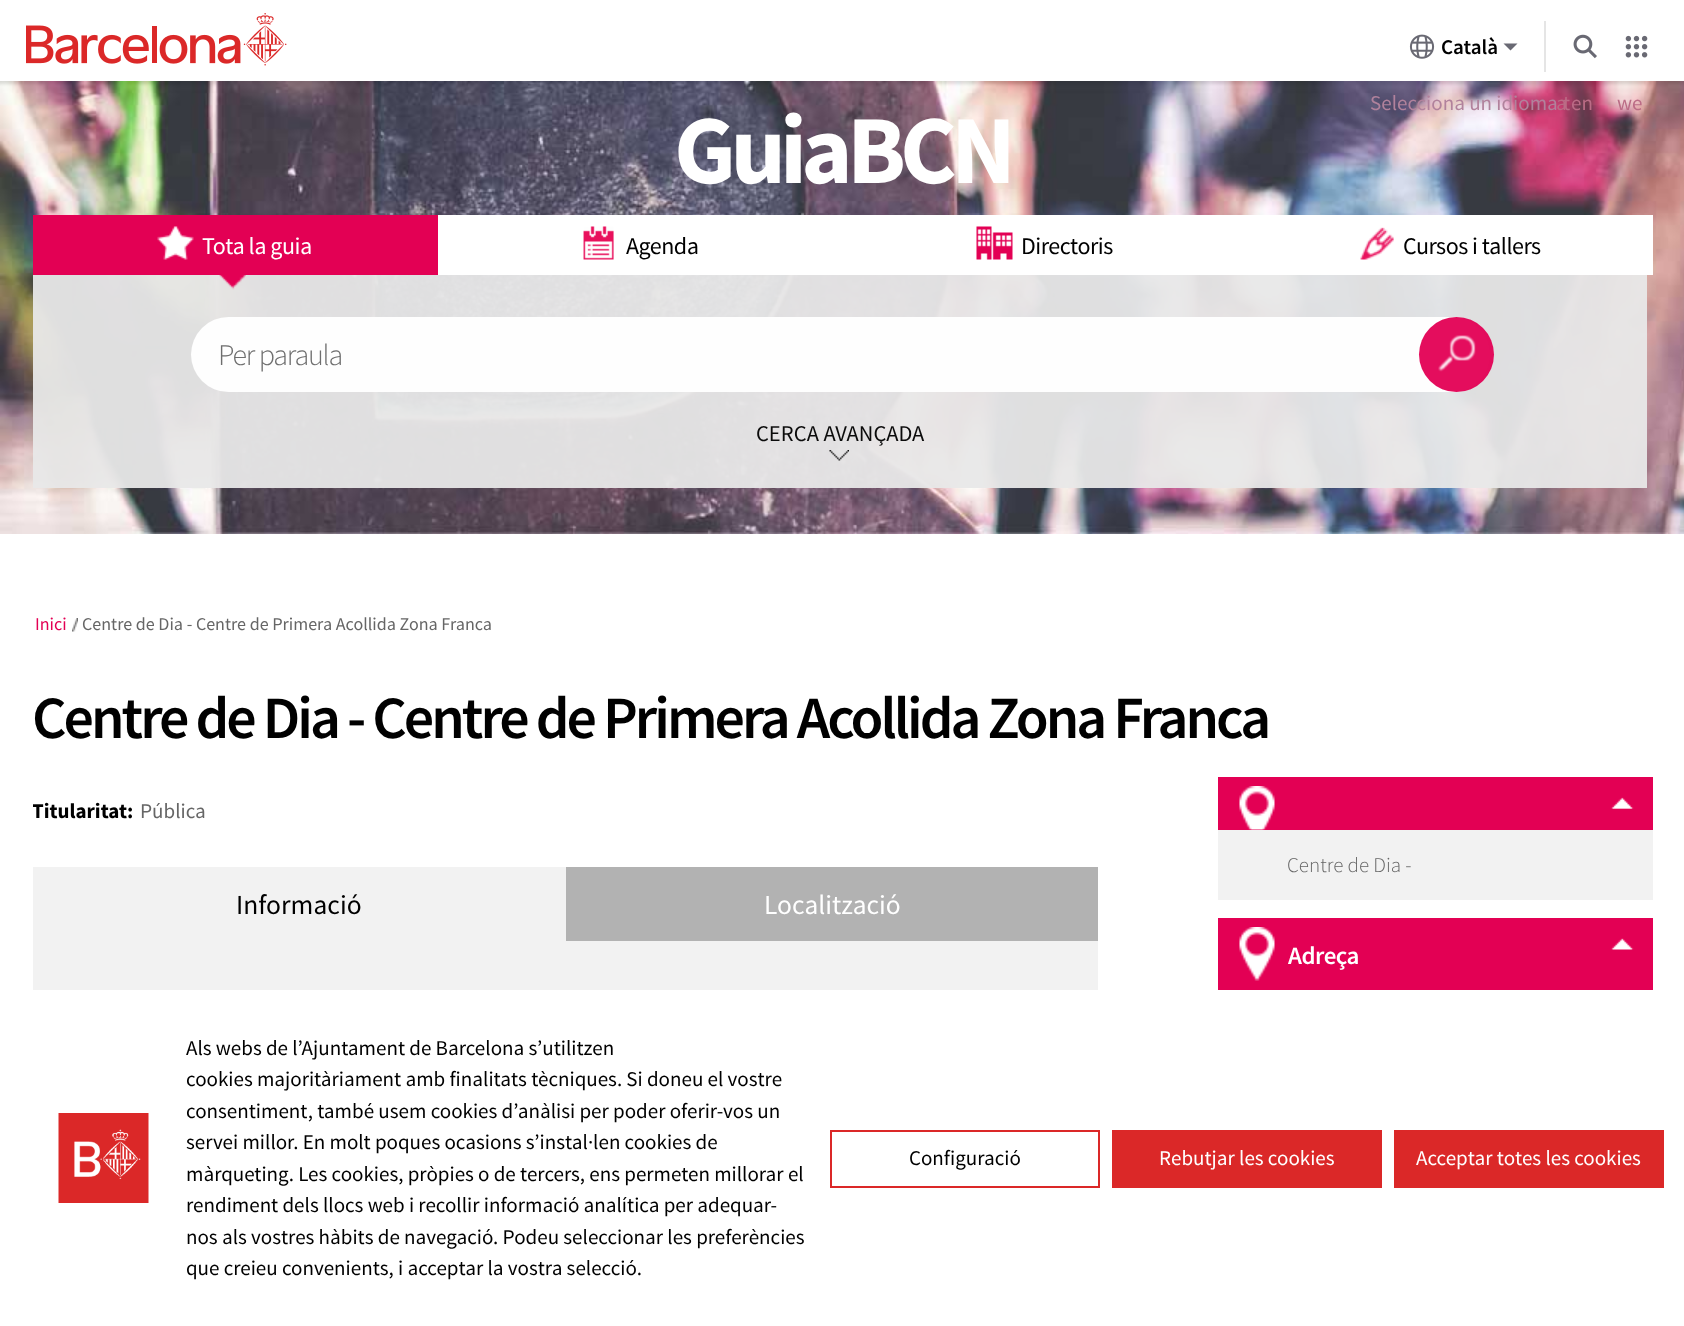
async function draw(canvas) {
	canvas.width = 1684;
	canvas.height = 1326;
	const c = canvas.getContext('2d');
	c.miterLimit = 4;
	c.fontKerning = 'normal';
	async function loadImage(src) {
		const img = new Image();
		img.src = src;
		await img.decode();
		return img;
	}

	c.fillStyle = '#fff';
	c.fillRect(0, 0, 1684, 1326);
	c.drawImage(await loadImage('img1.png'), 26, 13, 261, 53);
	c.fillStyle = '#e5e5e5';
	c.fillRect(1544, 21, 2, 51);
	c.drawImage(await loadImage('img2.png'), 1409, 34, 26, 25);
	c.font = '600 21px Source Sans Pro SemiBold';
	c.fillStyle = '#000';
	c.fillText('Català', 1441, 54);
	c.fillStyle = '#696973';
	c.beginPath();
	c.moveTo(1503.5, 43.5);
	c.lineTo(1510.5, 50.5);
	c.lineTo(1517.5, 43.5);
	c.closePath();
	c.fill();
	c.drawImage(await loadImage('img5.png'), 0, 81, 1684, 453);
	c.font = '21px Source Sans Pro';
	c.fillStyle = '#b1829c';
	c.fillText('Selecciona un idioma', 1370, 110);
	c.drawImage(await loadImage('img3.png'), 1625, 35, 23, 23);
	c.fillStyle = '#bb6c86';
	c.fillText('a en', 1556, 110);
	c.fillText('t', 1563, 110);
	c.drawImage(await loadImage('img4.png'), 1573, 34, 24, 25);
	c.fillText('we', 1617, 110);
	c.letterSpacing = '-5.75px';
	c.font = 'bold 97.5px Source Sans Pro';
	c.fillStyle = '#fff';
	c.fillText('GuiaBCN', 674, 183);
	c.fillStyle = '#e30054';
	c.fillRect(33, 215, 405, 60);
	c.drawImage(await loadImage('img6.png'), 157, 226, 37, 34);
	c.letterSpacing = '-0.5px';
	c.font = '24px Source Sans Pro';
	c.fillStyle = '#fff';
	c.fillText('Tota la guia', 202, 254);
	c.fillRect(438, 215, 1215, 60);
	c.drawImage(await loadImage('img7.png'), 583, 226, 31, 34);
	c.fillStyle = '#000';
	c.fillText('Agenda', 626, 254);
	c.drawImage(await loadImage('img8.png'), 976, 226, 37, 34);
	c.fillText('Directoris', 1021, 254);
	c.drawImage(await loadImage('img9.png'), 1360, 227, 34, 33);
	c.fillText('Cursos i tallers', 1403, 254);
	c.fillStyle = '#e8e8e8f2';
	c.fillRect(33, 275, 1614, 213);
	c.drawImage(await loadImage('img10.png'), 219, 275, 27, 15);
	c.fillStyle = '#fffffff2';
	c.beginPath();
	c.roundRect(191, 317, 1299, 75, 37.5);
	c.fill();
	c.letterSpacing = '-1.25px';
	c.font = '300 30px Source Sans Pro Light';
	c.fillStyle = '#6e6e6e';
	c.fillText('Per paraula', 218, 365);
	c.fillStyle = '#e30054f2';
	c.beginPath();
	c.arc(1456.5, 354.5, 37.5, 0, 2 * Math.PI);
	c.fill();
	c.drawImage(await loadImage('img11.png'), 1438, 335, 38, 37);
	c.drawImage(await loadImage('img12.png'), 829, 450, 20, 11);
	c.letterSpacing = '0px';
	c.font = '22.5px Source Sans Pro';
	c.fillStyle = '#0b0b0b';
	c.fillText('CERCA AVANÇADA', 756, 441);
	c.font = '18px Source Sans Pro';
	c.fillStyle = '#e30054';
	c.fillText('Inici', 35, 630);
	c.drawImage(await loadImage('img13.png'), 72, 618, 6, 14);
	c.fillStyle = '#666';
	c.fillText('Centre de Dia - Centre de Primera Acollida Zona Franca', 82, 630);
	c.letterSpacing = '-3px';
	c.font = '600 60px Source Sans Pro SemiBold';
	c.fillStyle = '#000';
	c.fillText('Centre de Dia - Centre de Primera Acollida Zona Franca', 32, 738);
	c.save();
	c.beginPath();
	c.rect(33, 798, 1065, 26);
	c.clip();
	c.letterSpacing = '0px';
	c.font = 'bold 21px Source Sans Pro';
	c.fillText('Titularitat:', 32, 818);
	c.restore();
	c.letterSpacing = '0px';
	c.font = '21px Source Sans Pro';
	c.fillStyle = '#666';
	c.fillText('Pública', 140, 818);
	c.fillStyle = '#f2f2f2';
	c.fillRect(33, 867, 533, 74);
	c.font = '27.5px Source Sans Pro';
	c.fillStyle = '#000';
	c.fillText('Informació', 236, 914);
	c.fillStyle = '#b2b2b2';
	c.fillRect(566, 867, 532, 74);
	c.fillStyle = '#fff';
	c.fillText('Localització', 764, 914);
	for (const [x, y, w, h, color] of [
		[33, 941, 1065, 49, '#f2f2f2'],
		[1218, 830, 435, 70, '#f2f2f2'],
		[1218, 777, 435, 53, '#e30054'],
	]) {
		c.fillStyle = color;
		c.fillRect(x, y, w, h);
	}
	c.drawImage(await loadImage('img14.png'), 1239, 786, 395, 44);
	c.font = '300 21px Source Sans Pro Light';
	c.fillStyle = '#666';
	c.fillText('Centre de Dia -', 1287, 872);
	c.fillStyle = '#e30054';
	c.fillRect(1218, 918, 435, 72);
	c.drawImage(await loadImage('img15.png'), 1239, 927, 395, 54);
	c.letterSpacing = '-0.5px';
	c.font = '600 25px Source Sans Pro SemiBold';
	c.fillStyle = '#fff';
	c.fillText('Adreça', 1288, 964);
	c.drawImage(await loadImage('img16.png'), 58, 1113, 91, 90);
	c.letterSpacing = '0px';
	c.font = '21px Source Sans Pro';
	c.fillStyle = '#000';
	for (const [text, x, y] of [
		['Als webs de l’Ajuntament de Barcelona s’utilitzen', 186, 1055],
		['cookies majoritàriament amb finalitats tècniques. Si doneu el vostre', 186, 1086],
		['consentiment, també usem cookies d’anàlisi per poder oferir-vos un', 186, 1118],
		['servei millor. En molt poques ocasions s’instal·len cookies de', 186, 1149],
		['màrqueting. Les cookies, pròpies o de tercers, ens permeten millorar el', 186, 1181],
		['rendiment dels llocs web i recollir informació analítica per adequar-', 186, 1212],
		['nos als vostres hàbits de navegació. Podeu seleccionar les preferències', 186, 1244],
		['que creieu convenients, i acceptar la vostra selecció.', 186, 1275],
	]) {
		c.fillText(text, x, y);
	}
	c.strokeStyle = '#db2828';
	c.lineWidth = 2;
	c.strokeRect(831, 1131, 268, 56);
	c.fillText('Configuració', 909, 1165);
	c.fillStyle = '#db2828';
	c.fillRect(1112, 1130, 270, 58);
	c.fillStyle = '#fff';
	c.fillText('Rebutjar les cookies', 1159, 1165);
	c.fillStyle = '#db2828';
	c.fillRect(1394, 1130, 270, 58);
	c.fillStyle = '#fff';
	c.fillText('Acceptar totes les cookies', 1416, 1165);
}

draw(document.querySelector('canvas'));
